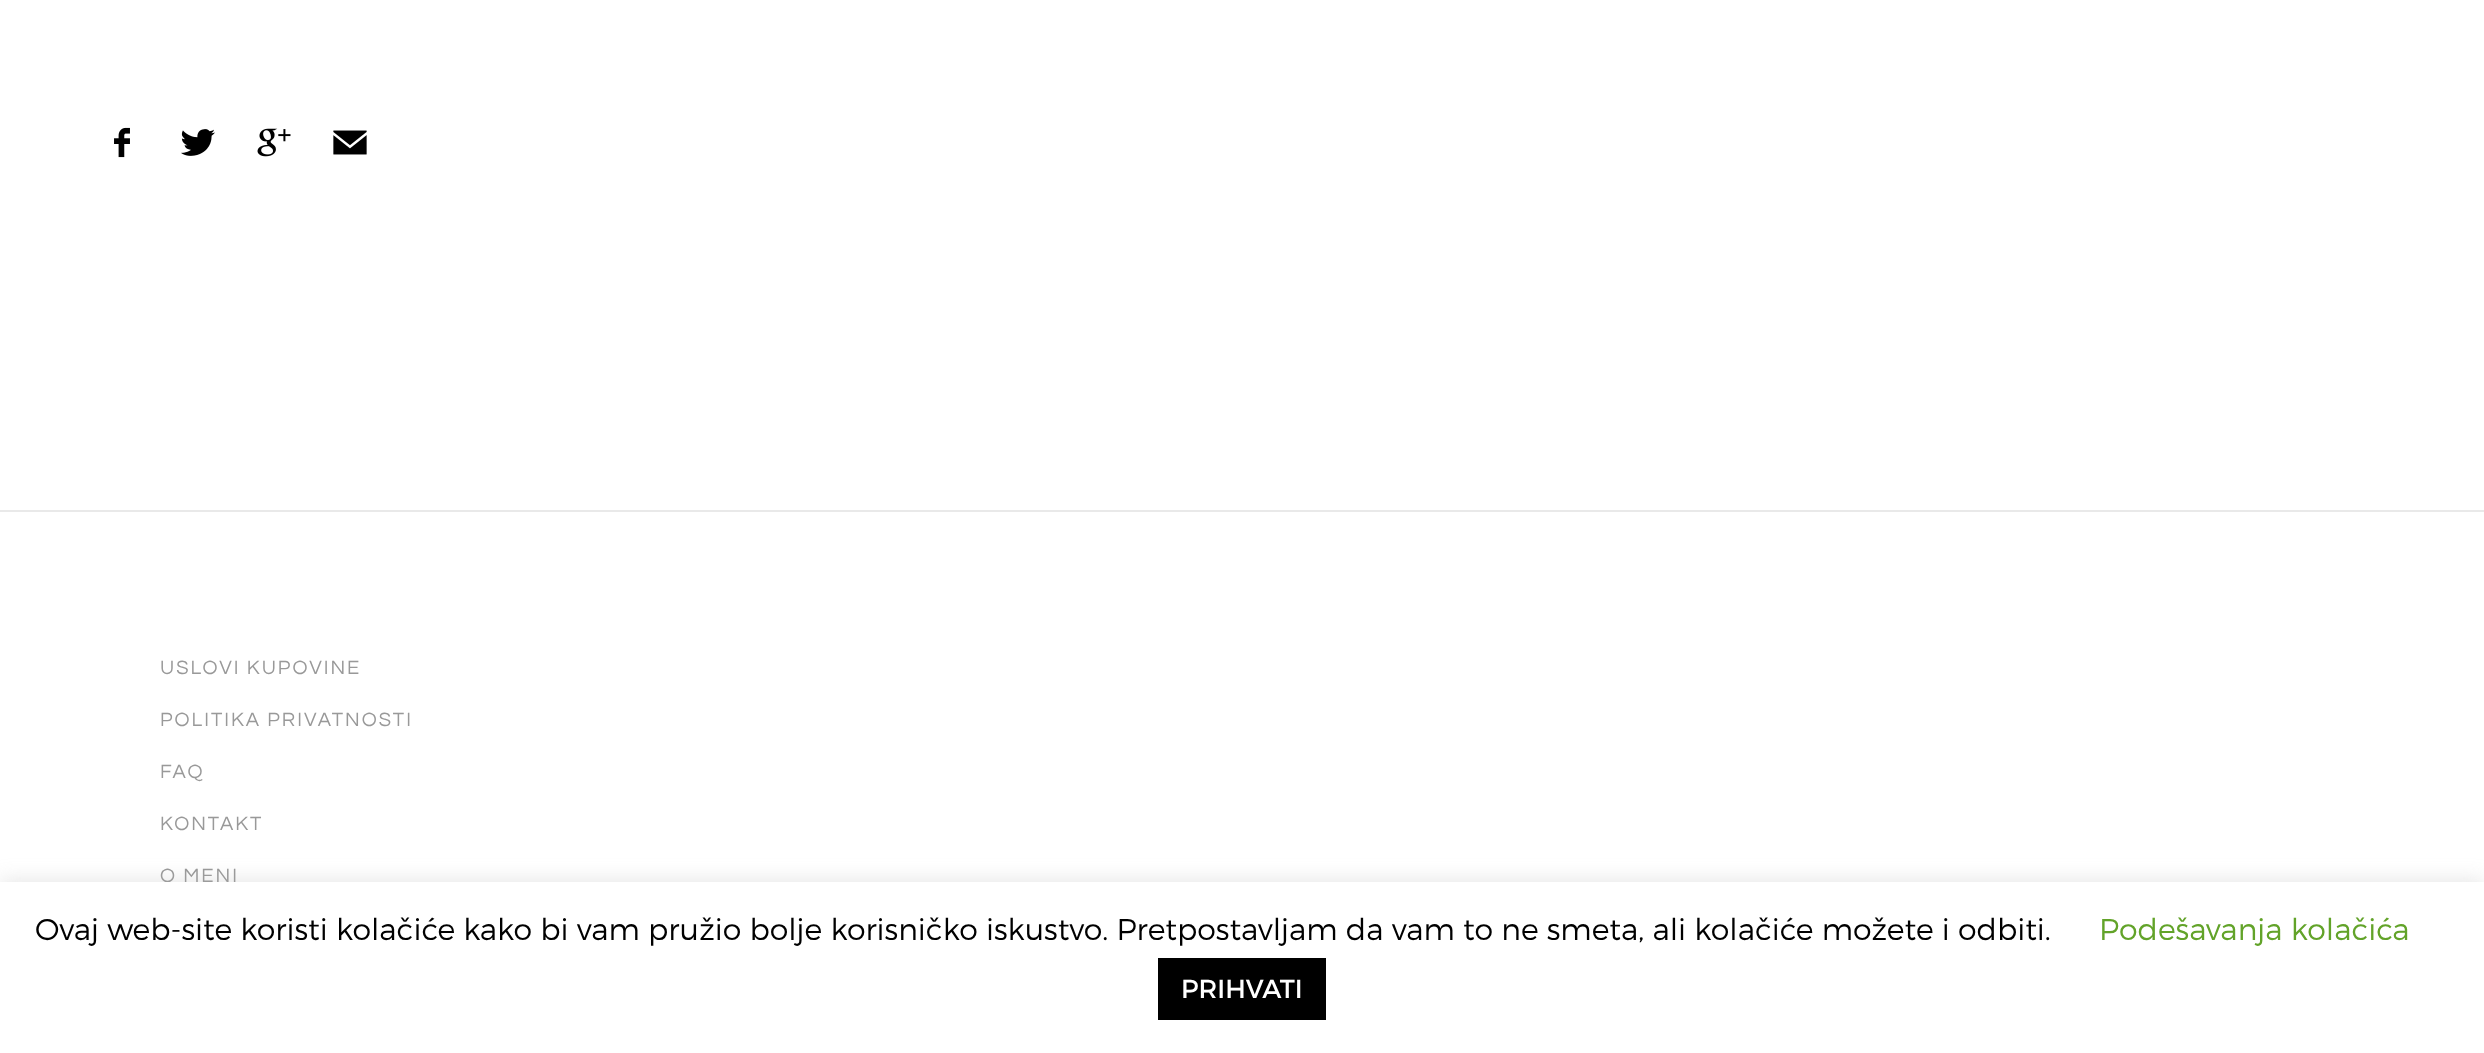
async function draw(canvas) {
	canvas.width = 2484;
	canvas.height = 1053;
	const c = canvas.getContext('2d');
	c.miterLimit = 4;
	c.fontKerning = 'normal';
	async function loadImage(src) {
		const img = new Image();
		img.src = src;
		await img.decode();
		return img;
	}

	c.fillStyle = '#fff';
	c.fillRect(0, 0, 2484, 1053);
	c.drawImage(await loadImage('img1.png'), 114, 127, 16, 31);
	c.drawImage(await loadImage('img2.png'), 181, 129, 34, 27);
	c.drawImage(await loadImage('img3.png'), 257, 128, 34, 29);
	c.drawImage(await loadImage('img4.png'), 333, 130, 34, 25);
	c.fillStyle = '#e9e9e9';
	c.fillRect(0, 510, 2484, 2);
	c.letterSpacing = '2px';
	c.font = '20px Questrial';
	c.fillStyle = '#999';
	for (const [text, x, y] of [
		['USLOVI KUPOVINE', 160, 674],
		['POLITIKA PRIVATNOSTI', 160, 726],
		['FAQ', 160, 778],
		['KONTAKT', 160, 830],
		['O MENI', 160, 882],
	]) {
		c.fillText(text, x, y);
	}
	c.fillStyle = '#acabab4d';
	c.filter = 'blur(10px)';
	c.beginPath();
	c.rect(0, 880, 2484, 172);
	c.fill();
	c.filter = 'none';
	c.fillStyle = '#fff';
	c.fillRect(0, 882, 2484, 171);
	c.letterSpacing = '0px';
	c.font = '300 30px Montserrat';
	c.fillStyle = '#000';
	c.fillText('Ovaj web-site koristi kolačiće kako bi vam pružio bolje korisničko iskustvo. Pretpostavljam da vam to ne smeta, ali kolačiće možete i odbiti.', 35, 940);
	c.fillStyle = '#62a329';
	c.fillText('Podešavanja kolačića', 2099, 940);
	c.fillStyle = '#000';
	c.fillRect(1158, 958, 168, 62);
	c.font = '26px Montserrat';
	c.fillStyle = '#fff';
	c.fillText('PRIHVATI', 1181, 998);
}

draw(document.querySelector('canvas'));
